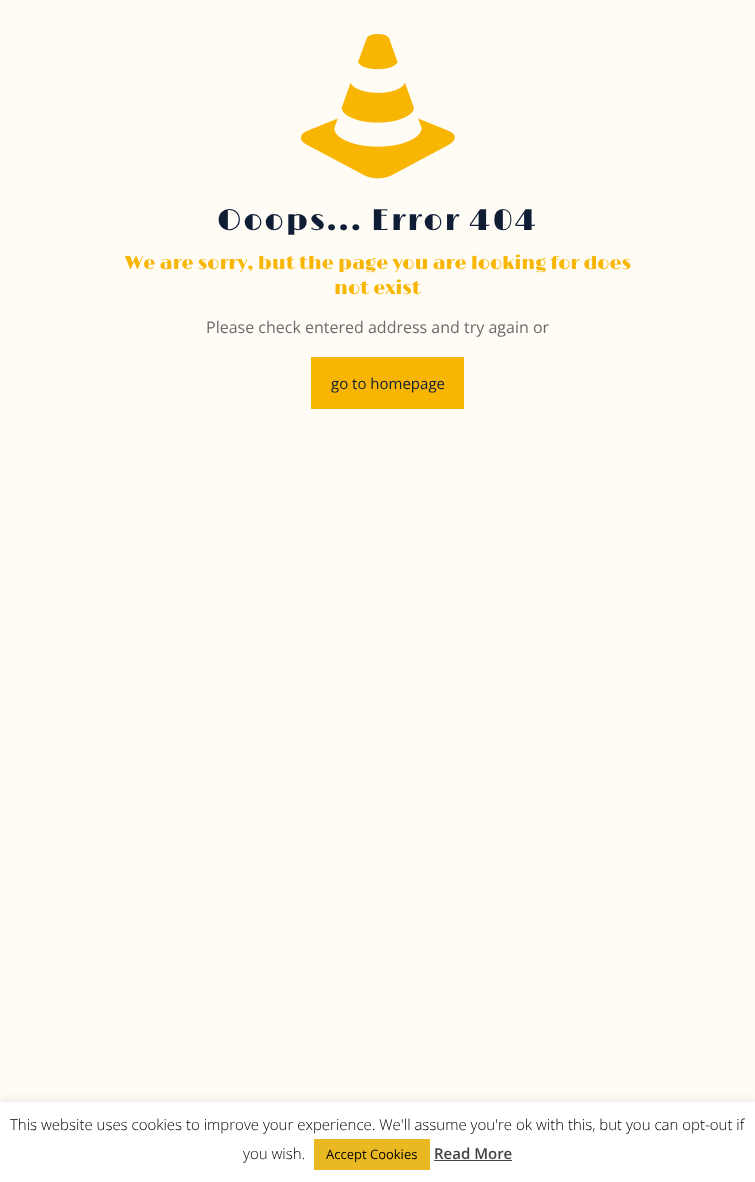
async function draw(canvas) {
	canvas.width = 755;
	canvas.height = 1182;
	const c = canvas.getContext('2d');
	c.miterLimit = 4;
	c.fontKerning = 'normal';
	async function loadImage(src) {
		const img = new Image();
		img.src = src;
		await img.decode();
		return img;
	}

	c.fillStyle = '#fffcf6';
	c.fillRect(0, 0, 755, 1182);
	c.drawImage(await loadImage('img1.png'), 301, 34, 154, 145);
	c.letterSpacing = '2px';
	c.font = '300 30px Limelight';
	c.fillStyle = '#0f1d35';
	c.fillText('Ooops... Error 404', 217, 230);
	c.letterSpacing = '0px';
	c.font = '300 19px Limelight';
	c.fillStyle = '#f8b602';
	c.fillText('We are sorry, but the page you are looking for does', 125, 269);
	c.fillText('not exist', 334, 294);
	c.font = '16px Open Sans';
	c.fillStyle = '#6b6c6a';
	c.fillText('Please check entered address and try again or', 206, 333);
	c.fillStyle = '#f8b602';
	c.fillRect(311, 357, 153, 52);
	c.font = '15px Open Sans';
	c.fillStyle = '#0f1d35';
	c.fillText('go to homepage', 331, 389);
	c.fillStyle = '#acabab4d';
	c.filter = 'blur(5px)';
	c.beginPath();
	c.rect(0, 1101, 755, 80);
	c.fill();
	c.filter = 'none';
	c.fillStyle = '#fff';
	c.fillRect(0, 1102, 755, 80);
	c.font = '300 15px Open Sans';
	c.fillStyle = '#000';
	c.fillText('This website uses cookies to improve your experience. We\'ll assume you\'re ok with this, but you can opt-out if', 10, 1130);
	c.fillText('you wish.', 243, 1159);
	c.fillStyle = '#eab820';
	c.fillRect(314, 1139, 116, 31);
	c.font = '13px Open Sans';
	c.fillStyle = '#000';
	c.fillText('Accept Cookies', 326, 1159);
	c.font = '600 15px Open Sans';
	c.fillStyle = '#444';
	c.fillText('Read More', 434, 1159);
	c.fillRect(434, 1160, 78, 1);
}

draw(document.querySelector('canvas'));
